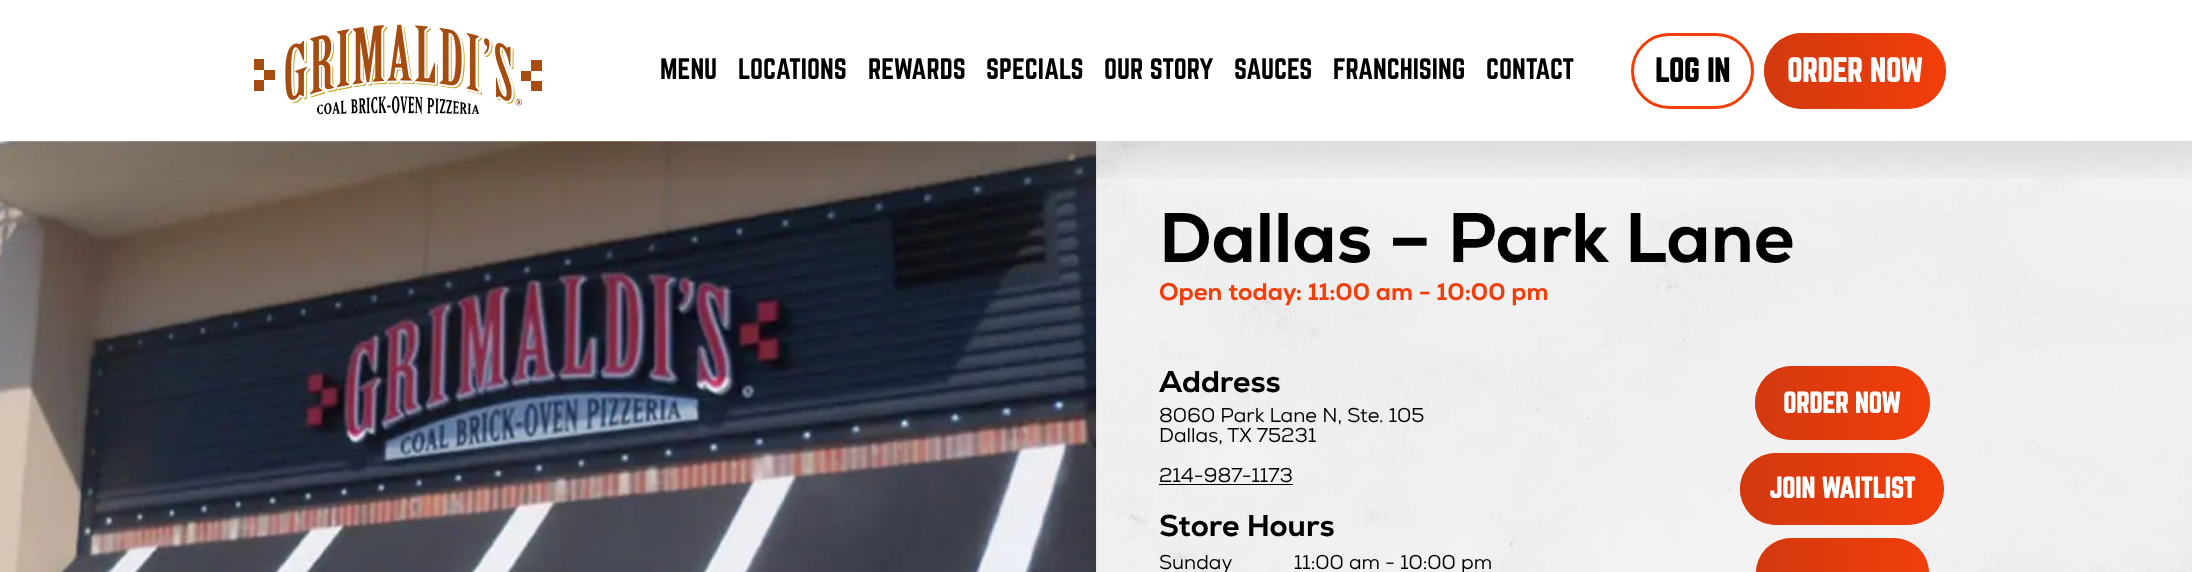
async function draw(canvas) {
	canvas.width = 2192;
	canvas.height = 572;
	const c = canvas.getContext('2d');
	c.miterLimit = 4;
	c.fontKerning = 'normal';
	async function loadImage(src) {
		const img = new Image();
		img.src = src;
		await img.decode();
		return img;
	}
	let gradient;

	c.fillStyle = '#fff';
	c.fillRect(0, 0, 2192, 572);
	c.drawImage(await loadImage('img2.png'), 0, 141, 1097, 431);
	c.drawImage(await loadImage('img3.png'), 1096, 141, 1096, 431);
	c.save();
	c.beginPath();
	c.rect(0, 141, 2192, 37);
	c.clip();
	c.fillStyle = '#0000001a';
	c.filter = 'blur(18px)';
	c.beginPath();
	c.rect(-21, -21, 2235, 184);
	c.fill();
	c.filter = 'none';
	c.restore();
	c.drawImage(await loadImage('img1.png'), 254, 24, 288, 91);
	c.font = '26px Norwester';
	c.fillStyle = '#000';
	for (const [text, x, y] of [
		['MENU', 660, 79],
		['LOCATIONS', 738, 79],
		['REWARDS', 868, 79],
		['SPECIALS', 986, 79],
		['OUR STORY', 1104, 79],
		['SAUCES', 1234, 79],
		['FRANCHISING', 1333, 79],
		['CONTACT', 1486, 79],
	]) {
		c.fillText(text, x, y);
	}
	c.beginPath();
	c.roundRect(1632.5, 34.5, 120, 73, 36.5);
	c.strokeStyle = '#f23e0a';
	c.lineWidth = 3;
	c.stroke();
	c.font = 'bold 30px Norwester';
	c.fillText('LOG IN', 1655, 82);
	c.fillStyle = '#f23e0a';
	c.beginPath();
	c.roundRect(1764, 33, 182, 76, 38);
	c.fill();
	c.save();
	c.beginPath();
	c.roundRect(1764, 33, 182, 76, 38);
	c.clip();
	gradient = c.createLinearGradient(1411, 71, 1766, 71);
	gradient.addColorStop(0, '#d2390f');
	gradient.addColorStop(0.51, '#f23e0a');
	gradient.addColorStop(1, '#d2390f');
	c.fillStyle = gradient;
	c.fillRect(1764, 59, 2, 24);
	gradient = c.createLinearGradient(1766, 71, 2121, 71);
	gradient.addColorStop(0, '#d2390f');
	gradient.addColorStop(0.51, '#f23e0a');
	gradient.addColorStop(1, '#d2390f');
	c.fillStyle = gradient;
	c.beginPath();
	c.roundRect(1766, 33, 180, 76, [0, 38, 38, 0]);
	c.fill();
	c.restore();
	c.fillStyle = '#fff';
	c.fillText('ORDER NOW', 1787, 82);
	c.font = '800 70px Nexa';
	c.fillStyle = '#000';
	c.fillText('Dallas – Park Lane', 1159, 262);
	c.font = '800 24px Nexa';
	c.fillStyle = '#f23e0a';
	c.fillText('Open today: 11:00 am - 10:00 pm', 1159, 300);
	c.font = '800 30px Nexa';
	c.fillStyle = '#000';
	c.fillText('Address', 1159, 392);
	c.font = '20px Nexa';
	for (const [text, x, y] of [
		['8060 Park Lane N, Ste. 105', 1159, 422],
		['Dallas, TX 75231', 1159, 442],
		['214-987-1173', 1159, 482],
	]) {
		c.fillText(text, x, y);
	}
	c.fillRect(1159, 484, 134, 1);
	c.font = '800 30px Nexa';
	c.fillText('Store Hours', 1159, 536);
	c.font = '20px Nexa';
	c.fillText('Sunday', 1159, 569);
	c.fillText('11:00 am - 10:00 pm', 1294, 569);
	c.fillStyle = '#f23e0a';
	c.beginPath();
	c.roundRect(1755, 366, 175, 74, 37);
	c.fill();
	c.save();
	c.beginPath();
	c.roundRect(1755, 366, 175, 74, 37);
	c.clip();
	gradient = c.createLinearGradient(1418, 403, 1758, 403);
	gradient.addColorStop(0, '#d2390f');
	gradient.addColorStop(0.51, '#f23e0a');
	gradient.addColorStop(1, '#d2390f');
	c.fillStyle = gradient;
	c.fillRect(1755, 388, 3, 30);
	gradient = c.createLinearGradient(1758, 403, 2098, 403);
	gradient.addColorStop(0, '#d2390f');
	gradient.addColorStop(0.51, '#f23e0a');
	gradient.addColorStop(1, '#d2390f');
	c.fillStyle = gradient;
	c.beginPath();
	c.roundRect(1758, 366, 172, 74, [0, 37, 37, 0]);
	c.fill();
	c.restore();
	c.font = 'bold 26px Norwester';
	c.fillStyle = '#fff';
	c.fillText('ORDER NOW', 1783, 413);
	c.fillStyle = '#f23e0a';
	c.beginPath();
	c.roundRect(1740, 453, 204, 72, 36);
	c.fill();
	c.save();
	c.beginPath();
	c.roundRect(1740, 453, 204, 72, 36);
	c.clip();
	gradient = c.createLinearGradient(1345, 489, 1743, 489);
	gradient.addColorStop(0, '#d2390f');
	gradient.addColorStop(0.51, '#f23e0a');
	gradient.addColorStop(1, '#d2390f');
	c.fillStyle = gradient;
	c.fillRect(1740, 474, 3, 30);
	gradient = c.createLinearGradient(1743, 489, 2140, 489);
	gradient.addColorStop(0, '#d2390f');
	gradient.addColorStop(0.51, '#f23e0a');
	gradient.addColorStop(1, '#d2390f');
	c.fillStyle = gradient;
	c.beginPath();
	c.roundRect(1743, 453, 201, 72, [0, 36, 36, 0]);
	c.fill();
	c.restore();
	c.fillStyle = '#fff';
	c.fillText('JOIN WAITLIST', 1769, 498);
	c.fillStyle = '#f23e0a';
	c.beginPath();
	c.roundRect(1756, 538, 173, 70, 36);
	c.fill();
	c.save();
	c.beginPath();
	c.roundRect(1756, 538, 173, 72, 36);
	c.clip();
	gradient = c.createLinearGradient(1424, 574, 1759, 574);
	gradient.addColorStop(0, '#d2390f');
	gradient.addColorStop(0.51, '#f23e0a');
	gradient.addColorStop(1, '#d2390f');
	c.fillStyle = gradient;
	c.fillRect(1756, 559, 3, 13);
	gradient = c.createLinearGradient(1759, 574, 2094, 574);
	gradient.addColorStop(0, '#d2390f');
	gradient.addColorStop(0.51, '#f23e0a');
	gradient.addColorStop(1, '#d2390f');
	c.fillStyle = gradient;
	c.beginPath();
	c.moveTo(1759, 538);
	c.lineTo(1893, 538);
	c.bezierCurveTo(1913, 538, 1929, 554, 1929, 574);
	c.lineTo(1929, 572);
	c.bezierCurveTo(1929, 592, 1913, 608, 1893, 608);
	c.lineTo(1759, 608);
	c.closePath();
	c.fill();
	c.restore();
}

draw(document.querySelector('canvas'));
